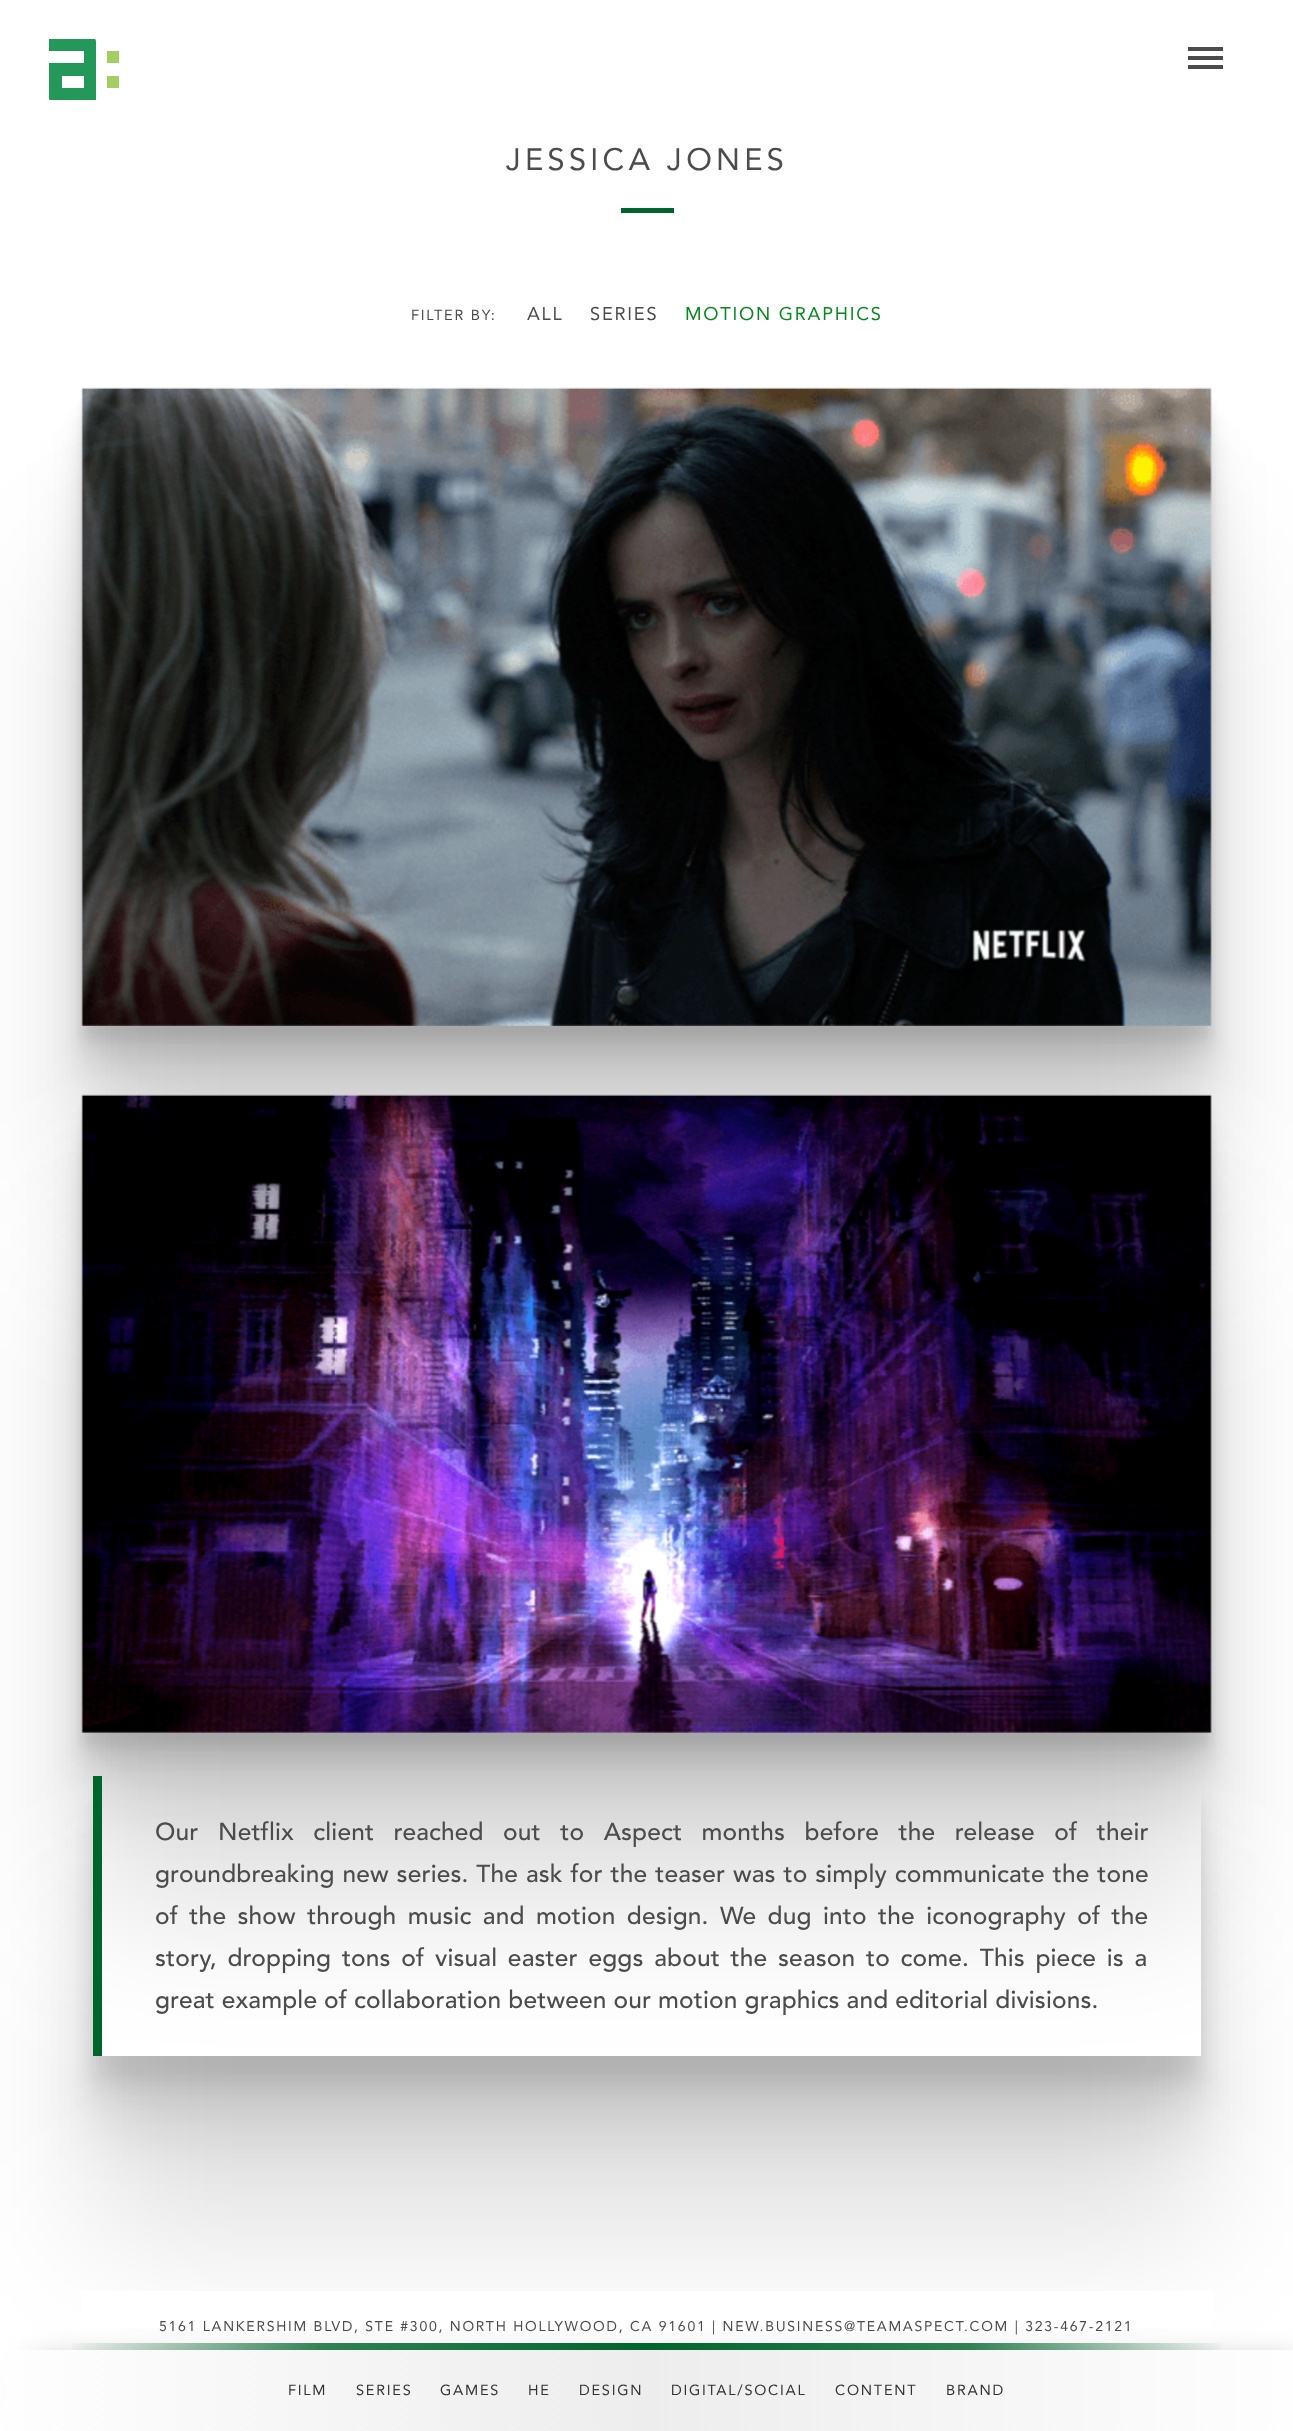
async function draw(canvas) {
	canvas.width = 1293;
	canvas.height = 2431;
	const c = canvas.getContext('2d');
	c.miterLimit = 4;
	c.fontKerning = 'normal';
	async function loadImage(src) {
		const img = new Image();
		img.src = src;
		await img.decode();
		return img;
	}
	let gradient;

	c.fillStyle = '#fff';
	c.fillRect(0, 0, 1293, 2431);
	c.fillStyle = '#a3cf62';
	c.fillRect(107, 51, 12, 12);
	c.fillRect(107, 76, 12, 12);
	c.save();
	c.beginPath();
	c.rect(49, 39, 70, 61);
	c.clip();
	c.fillStyle = '#249858';
	c.beginPath();
	c.moveTo(62, 88);
	c.lineTo(84, 88);
	c.lineTo(84, 76);
	c.lineTo(62, 76);
	c.closePath();
	c.moveTo(49, 51);
	c.lineTo(49, 38);
	c.lineTo(93, 38);
	c.bezierCurveTo(95, 38, 96, 40, 96, 42);
	c.lineTo(96, 101);
	c.lineTo(52, 101);
	c.bezierCurveTo(50, 101, 49, 100, 49, 98);
	c.lineTo(49, 63);
	c.lineTo(84, 63);
	c.lineTo(84, 51);
	c.closePath();
	c.fill();
	c.restore();
	for (const [x, y, w, h, color] of [
		[1188, 47, 35, 4, '#4c4c4c'],
		[1188, 56, 35, 4, '#4c4c4c'],
		[1188, 65, 35, 4, '#4c4c4c'],
	]) {
		c.fillStyle = color;
		c.fillRect(x, y, w, h);
	}
	c.letterSpacing = '4.25px';
	c.font = '30.75px Avenir';
	c.fillText('JESSICA JONES', 506, 170);
	c.fillStyle = '#00652d';
	c.fillRect(621, 208, 53, 5);
	c.fillStyle = '#0000001f';
	c.filter = 'blur(70px)';
	c.beginPath();
	c.rect(82, 564, 1129, 637);
	c.fill();
	c.filter = 'none';
	c.fillStyle = '#00000017';
	c.filter = 'blur(29px)';
	c.beginPath();
	c.rect(82, 462, 1129, 637);
	c.fill();
	c.filter = 'none';
	c.fillStyle = '#00000012';
	c.filter = 'blur(15.5px)';
	c.beginPath();
	c.rect(82, 427, 1129, 637);
	c.fill();
	c.filter = 'none';
	c.fillStyle = '#0000000f';
	c.filter = 'blur(9px)';
	c.beginPath();
	c.rect(82, 411, 1129, 637);
	c.fill();
	c.filter = 'none';
	c.fillStyle = '#0000000d';
	c.filter = 'blur(4.5px)';
	c.beginPath();
	c.rect(82, 401, 1129, 637);
	c.fill();
	c.filter = 'none';
	c.drawImage(await loadImage('img1.png'), 81, 387, 1131, 639);
	c.fillStyle = '#0000001f';
	c.filter = 'blur(70px)';
	c.beginPath();
	c.rect(82, 1271, 1129, 637);
	c.fill();
	c.filter = 'none';
	c.fillStyle = '#00000017';
	c.filter = 'blur(29px)';
	c.beginPath();
	c.rect(82, 1169, 1129, 637);
	c.fill();
	c.filter = 'none';
	c.fillStyle = '#00000012';
	c.filter = 'blur(15.5px)';
	c.beginPath();
	c.rect(82, 1134, 1129, 637);
	c.fill();
	c.filter = 'none';
	c.fillStyle = '#0000000f';
	c.filter = 'blur(9px)';
	c.beginPath();
	c.rect(82, 1118, 1129, 637);
	c.fill();
	c.filter = 'none';
	c.fillStyle = '#0000000d';
	c.filter = 'blur(4.5px)';
	c.beginPath();
	c.rect(82, 1108, 1129, 637);
	c.fill();
	c.filter = 'none';
	c.drawImage(await loadImage('img2.png'), 81, 1094, 1131, 639);
	c.save();
	c.beginPath();
	c.moveTo(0, 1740);
	c.lineTo(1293, 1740);
	c.lineTo(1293, 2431);
	c.lineTo(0, 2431);
	c.closePath();
	c.moveTo(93, 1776);
	c.lineTo(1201, 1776);
	c.lineTo(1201, 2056);
	c.lineTo(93, 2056);
	c.closePath();
	c.clip('evenodd');
	c.fillStyle = '#0000001f';
	c.filter = 'blur(70px)';
	c.beginPath();
	c.rect(93, 1951, 1108, 280);
	c.fill();
	c.filter = 'none';
	c.restore();
	c.save();
	c.beginPath();
	c.moveTo(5, 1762);
	c.lineTo(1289, 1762);
	c.lineTo(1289, 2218);
	c.lineTo(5, 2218);
	c.closePath();
	c.moveTo(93, 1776);
	c.lineTo(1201, 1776);
	c.lineTo(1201, 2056);
	c.lineTo(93, 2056);
	c.closePath();
	c.clip('evenodd');
	c.fillStyle = '#00000017';
	c.filter = 'blur(29px)';
	c.beginPath();
	c.rect(93, 1850, 1108, 280);
	c.fill();
	c.filter = 'none';
	c.restore();
	c.save();
	c.beginPath();
	c.moveTo(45, 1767);
	c.lineTo(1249, 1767);
	c.lineTo(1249, 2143);
	c.lineTo(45, 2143);
	c.closePath();
	c.moveTo(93, 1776);
	c.lineTo(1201, 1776);
	c.lineTo(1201, 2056);
	c.lineTo(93, 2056);
	c.closePath();
	c.clip('evenodd');
	c.fillStyle = '#00000012';
	c.filter = 'blur(15.5px)';
	c.beginPath();
	c.rect(93, 1815, 1108, 280);
	c.fill();
	c.filter = 'none';
	c.restore();
	c.save();
	c.beginPath();
	c.moveTo(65, 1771);
	c.lineTo(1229, 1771);
	c.lineTo(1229, 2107);
	c.lineTo(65, 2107);
	c.closePath();
	c.moveTo(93, 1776);
	c.lineTo(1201, 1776);
	c.lineTo(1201, 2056);
	c.lineTo(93, 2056);
	c.closePath();
	c.clip('evenodd');
	c.fillStyle = '#0000000f';
	c.filter = 'blur(9px)';
	c.beginPath();
	c.rect(93, 1799, 1108, 280);
	c.fill();
	c.filter = 'none';
	c.restore();
	c.fillStyle = '#00652d';
	c.fillRect(93, 1776, 9, 280);
	c.letterSpacing = '0.15px';
	c.wordSpacing = '12.5px';
	c.font = '500 24.5px Avenir';
	c.fillStyle = '#4c4c4c';
	c.fillText('Our Netflix client reached out to Aspect months before the release of their', 155, 1840);
	c.wordSpacing = '0.9px';
	c.fillText('groundbreaking new series. The ask for the teaser was to simply communicate the tone', 155, 1882);
	c.wordSpacing = '4.4px';
	c.fillText('of the show through music and motion design. We dug into the iconography of the', 155, 1924);
	c.wordSpacing = '3.75px';
	c.fillText('story, dropping tons of visual easter eggs about the season to come. This piece is a', 155, 1966);
	c.wordSpacing = '0px';
	c.fillText('great example of collaboration between our motion graphics and editorial divisions.', 155, 2008);
	c.letterSpacing = '1.75px';
	c.font = '14.5px Avenir';
	c.fillText('FILTER BY:', 411, 320);
	c.font = '18.25px Avenir';
	c.fillText('ALL', 527, 320);
	c.fillText('SERIES', 590, 320);
	c.fillStyle = '#068a1f';
	c.fillText('MOTION GRAPHICS', 685, 320);
	c.fillStyle = '#fff';
	c.fillRect(81, 2291, 1132, 37);
	c.font = '14px Avenir';
	c.fillStyle = '#4c4c4c';
	c.fillText('5161 LANKERSHIM BLVD, STE #300, NORTH HOLLYWOOD, CA 91601 | NEW.BUSINESS@TEAMASPECT.COM | 323-467-2121', 159, 2331);
	c.fillStyle = '#888';
	c.filter = 'blur(17.5px)';
	c.beginPath();
	c.rect(35, 2368, 1258, 47);
	c.fill();
	c.filter = 'none';
	gradient = c.createLinearGradient(0, 2391, 1293, 2391);
	gradient.addColorStop(0, '#fefefe');
	gradient.addColorStop(0.5, '#ededed');
	gradient.addColorStop(1, '#fefefe');
	c.fillStyle = gradient;
	c.fillRect(4, 2350, 1289, 81);
	gradient = c.createLinearGradient(0, 2347, 1293, 2347);
	gradient.addColorStop(0.05, '#00652d00');
	gradient.addColorStop(0.25, '#00652dcc');
	gradient.addColorStop(0.5, '#00652d');
	gradient.addColorStop(0.75, '#00652dcc');
	gradient.addColorStop(0.95, '#00652d00');
	c.fillStyle = gradient;
	c.fillRect(72, 2343, 1149, 7);
	c.font = '14.5px Avenir';
	c.fillStyle = '#333';
	for (const [text, x, y] of [
		['FILM', 288, 2395],
		['SERIES', 356, 2395],
		['GAMES', 440, 2395],
		['HE', 528, 2395],
		['DESIGN', 579, 2395],
		['DIGITAL/SOCIAL', 671, 2395],
		['CONTENT', 835, 2395],
		['BRAND', 946, 2395],
	]) {
		c.fillText(text, x, y);
	}
}

draw(document.querySelector('canvas'));
